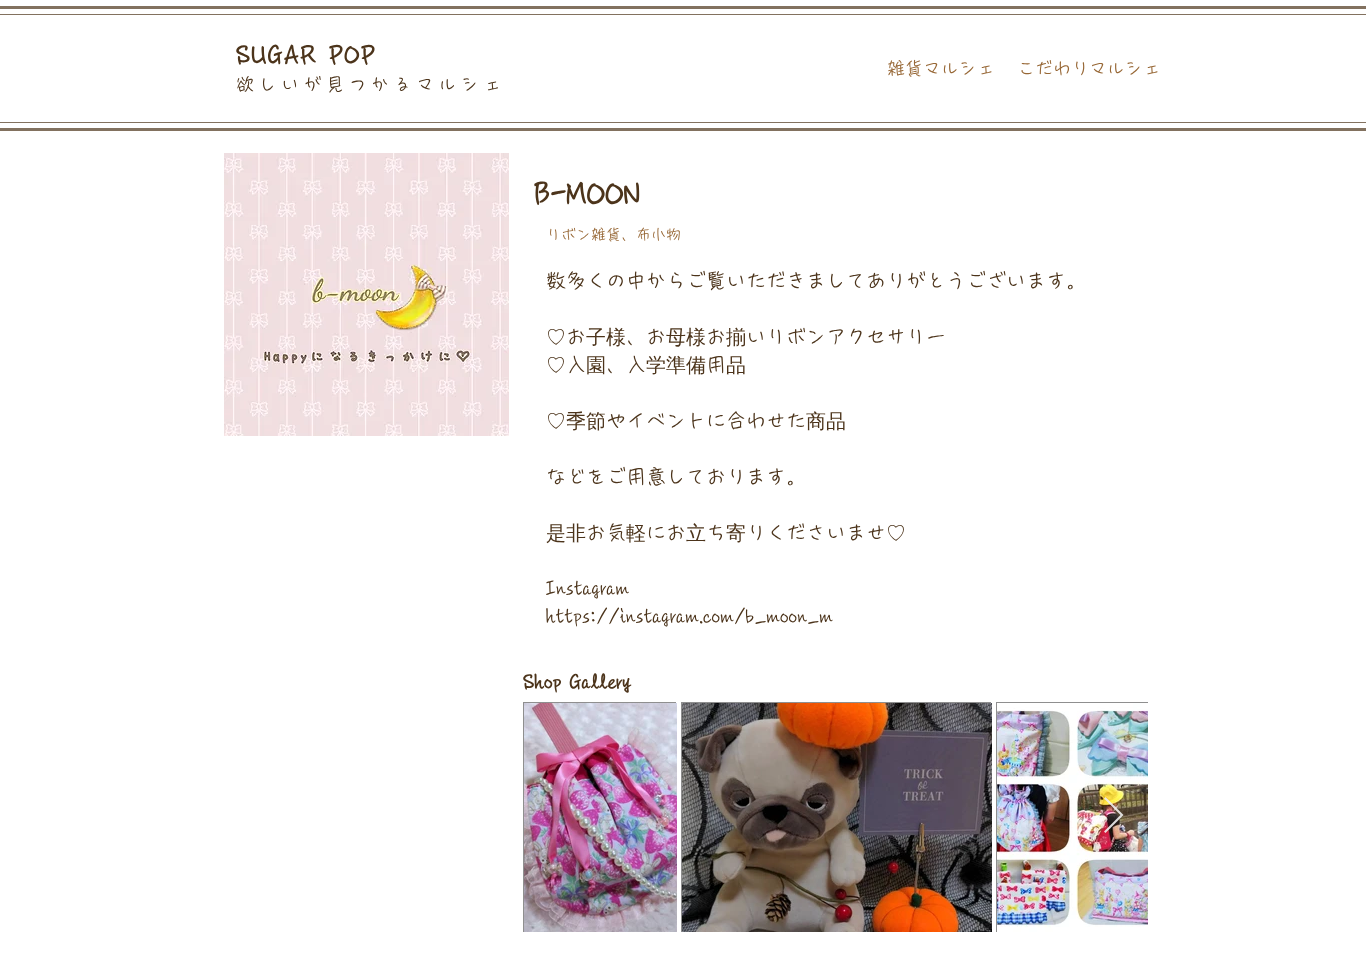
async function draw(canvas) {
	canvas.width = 1366;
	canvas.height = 961;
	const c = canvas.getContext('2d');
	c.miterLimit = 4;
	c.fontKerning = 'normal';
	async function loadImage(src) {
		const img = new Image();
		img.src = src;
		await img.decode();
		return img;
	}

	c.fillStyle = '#fff';
	c.fillRect(0, 0, 1366, 961);
	for (const [x, y, w, h, color] of [
		[0, 6, 1366, 3, '#82715f'],
		[0, 128, 1366, 3, '#82715f'],
		[0, 14, 1366, 1, '#82715f'],
		[0, 122, 1366, 1, '#82715f'],
	]) {
		c.fillStyle = color;
		c.fillRect(x, y, w, h);
	}
	c.letterSpacing = '1.25px';
	c.font = 'bold 25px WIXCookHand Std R';
	c.fillStyle = '#4c341b';
	c.fillText('SUGAR POP', 236, 65);
	c.letterSpacing = '4.5px';
	c.font = '18px WIXCookHand Std R';
	c.fillText('欲しいが見つかるマルシェ', 236, 91);
	c.letterSpacing = '0px';
	c.fillStyle = '#976735';
	c.fillText('雑貨マルシェ', 887, 75);
	c.fillText('こだわりマルシェ', 1017, 75);
	c.drawImage(await loadImage('img1.png'), 224, 153, 285, 283);
	c.font = 'bold 30px WIXCookHand Std R';
	c.fillStyle = '#4c341b';
	c.fillText('B-MOON', 534, 206);
	c.font = '15px WIXCookHand Std R';
	c.fillStyle = '#976735';
	c.fillText('リボン雑貨、布小物', 546, 240);
	c.font = '20px WIXCookHand Std R';
	c.fillStyle = '#4c341b';
	c.fillText('数多くの中からご覧いただきましてありがとうございます。', 546, 288);
	c.font = '500 20px WenQuanYi Zen Hei';
	c.fillText('♡', 546, 344);
	c.font = '20px WIXCookHand Std R';
	c.fillText('お', 566, 344);
	c.font = '500 20px WenQuanYi Zen Hei';
	c.fillText('子様', 586, 344);
	c.font = '20px WIXCookHand Std R';
	c.fillText('、お', 626, 344);
	c.font = '500 20px WenQuanYi Zen Hei';
	c.fillText('母様', 666, 344);
	c.font = '20px WIXCookHand Std R';
	c.fillText('お', 706, 344);
	c.font = '500 20px WenQuanYi Zen Hei';
	c.fillText('揃', 726, 344);
	c.font = '20px WIXCookHand Std R';
	c.fillText('いリボンアクセサリー', 746, 344);
	c.font = '500 20px WenQuanYi Zen Hei';
	c.fillText('♡', 546, 372);
	c.font = '20px WIXCookHand Std R';
	c.fillText('入', 566, 372);
	c.font = '500 20px WenQuanYi Zen Hei';
	c.fillText('園', 586, 372);
	c.font = '20px WIXCookHand Std R';
	c.fillText('、入', 606, 372);
	c.font = '500 20px WenQuanYi Zen Hei';
	c.fillText('学準備', 646, 372);
	c.font = '20px WIXCookHand Std R';
	c.fillText('用', 706, 372);
	c.font = '500 20px WenQuanYi Zen Hei';
	c.fillText('品', 726, 372);
	c.fillText('♡季節', 546, 428);
	c.font = '20px WIXCookHand Std R';
	c.fillText('やイベントに合わせた', 606, 428);
	c.font = '500 20px WenQuanYi Zen Hei';
	c.fillText('商品', 806, 428);
	c.font = '20px WIXCookHand Std R';
	c.fillText('などをご用意しております。', 546, 484);
	c.font = '500 20px WenQuanYi Zen Hei';
	c.fillText('是非', 546, 540);
	c.font = '20px WIXCookHand Std R';
	c.fillText('お気', 586, 540);
	c.font = '500 20px WenQuanYi Zen Hei';
	c.fillText('軽', 626, 540);
	c.font = '20px WIXCookHand Std R';
	c.fillText('にお', 646, 540);
	c.font = '500 20px WenQuanYi Zen Hei';
	c.fillText('立', 686, 540);
	c.font = '20px WIXCookHand Std R';
	c.fillText('ち', 706, 540);
	c.font = '500 20px WenQuanYi Zen Hei';
	c.fillText('寄', 726, 540);
	c.font = '20px WIXCookHand Std R';
	c.fillText('りくださいませ', 746, 540);
	c.font = '500 20px WenQuanYi Zen Hei';
	c.fillText('♡', 886, 540);
	c.font = '20px WIXCookHand Std R';
	c.fillText('Instagram', 546, 596);
	c.fillText('https://instagram.com/b_moon_m', 546, 624);
	c.font = 'bold 20px WIXCookHand Std R';
	c.fillText('Shop Gallery', 523, 690);
	c.fillStyle = '#8f8f8f';
	c.fillRect(523, 702, 153, 230);
	c.drawImage(await loadImage('img2.png'), 524, 703, 153, 229);
	c.fillRect(681, 702, 310, 230);
	c.drawImage(await loadImage('img3.png'), 682, 703, 310, 229);
	c.fillRect(996, 702, 152, 230);
	c.drawImage(await loadImage('img4.png'), 997, 703, 151, 229);
	c.fillStyle = '#efefefe6';
	c.beginPath();
	c.moveTo(1104, 798.5);
	c.lineTo(1105.5, 797);
	c.lineTo(1123.5, 815);
	c.lineTo(1105.5, 833);
	c.lineTo(1104, 831.5);
	c.lineTo(1120.5, 815);
	c.closePath();
	c.fill();
}

draw(document.querySelector('canvas'));
